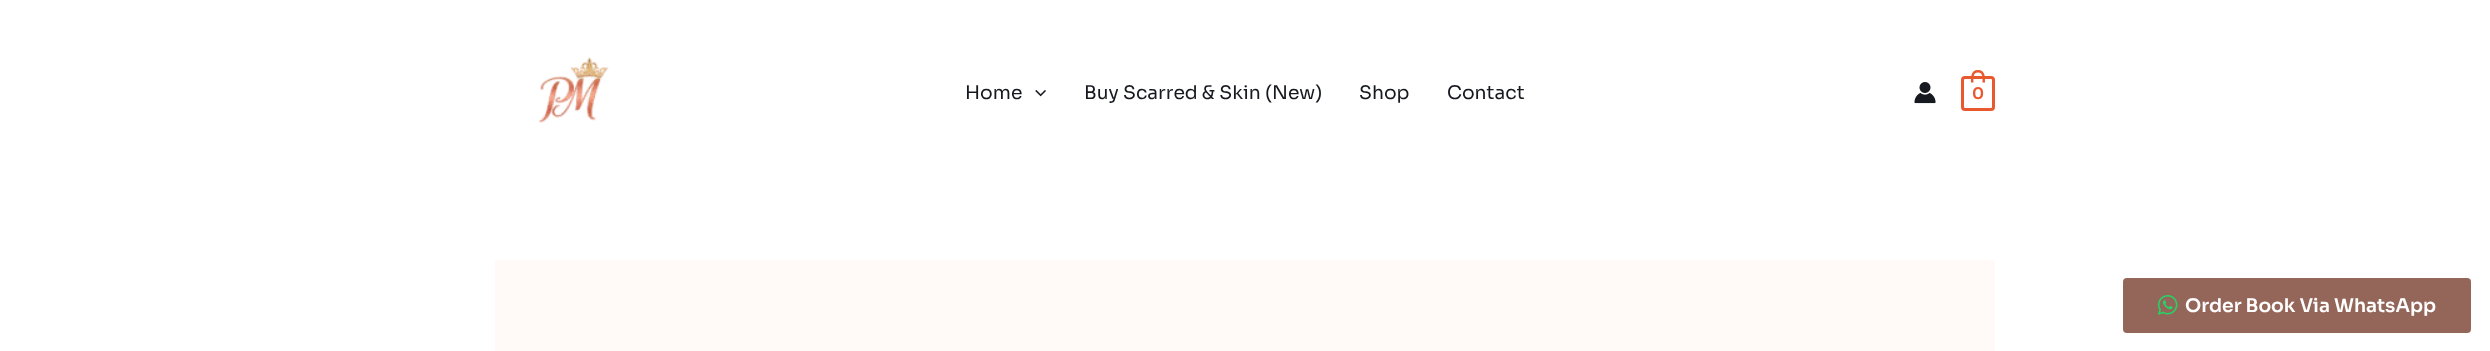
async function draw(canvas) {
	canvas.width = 2490;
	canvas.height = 351;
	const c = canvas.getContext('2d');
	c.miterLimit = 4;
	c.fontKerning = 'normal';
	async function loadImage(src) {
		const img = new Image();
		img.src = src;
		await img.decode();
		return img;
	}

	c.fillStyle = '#fff';
	c.fillRect(0, 0, 2490, 351);
	c.drawImage(await loadImage('img1.png'), 538, 57, 71, 66);
	c.font = '18.75px Sora';
	c.fillStyle = '#171921';
	c.fillText('Home', 965, 99);
	c.drawImage(await loadImage('img2.png'), 1035, 90, 11, 7);
	for (const [text, x, y] of [
		['Buy Scarred & Skin (New)', 1084, 99],
		['Shop', 1359, 99],
		['Contact', 1447, 99],
	]) {
		c.fillText(text, x, y);
	}
	c.drawImage(await loadImage('img3.png'), 1914, 82, 22, 22);
	c.beginPath();
	c.roundRect(1962.5, 77.5, 31, 32, 2.5);
	c.strokeStyle = '#e95930';
	c.lineWidth = 3;
	c.stroke();
	c.fillStyle = '#e95930';
	c.beginPath();
	c.moveTo(1978, 70);
	c.bezierCurveTo(1985.5, 70, 1985, 77.5, 1985, 82.5);
	c.lineTo(1971, 82.5);
	c.bezierCurveTo(1971, 77.5, 1970.5, 70, 1978, 70);
	c.closePath();
	c.moveTo(1978, 72.5);
	c.bezierCurveTo(1983.5, 72.5, 1982.5, 79, 1982.5, 82.5);
	c.lineTo(1973.5, 82.5);
	c.bezierCurveTo(1973.5, 79, 1972.5, 72.5, 1978, 72.5);
	c.closePath();
	c.fill('evenodd');
	c.font = '600 16px Sora';
	c.fillText('0', 1972, 99);
	c.fillStyle = '#fffaf8';
	c.fillRect(495, 260, 1500, 91);
	c.fillStyle = '#946659';
	c.beginPath();
	c.roundRect(2123, 278, 348, 55, 4);
	c.fill();
	c.drawImage(await loadImage('img4.png'), 2158, 295, 20, 20);
	c.font = '600 18.75px Sora';
	c.fillStyle = '#fff';
	c.fillText('Order Book Via WhatsApp', 2185, 312);
}

draw(document.querySelector('canvas'));
